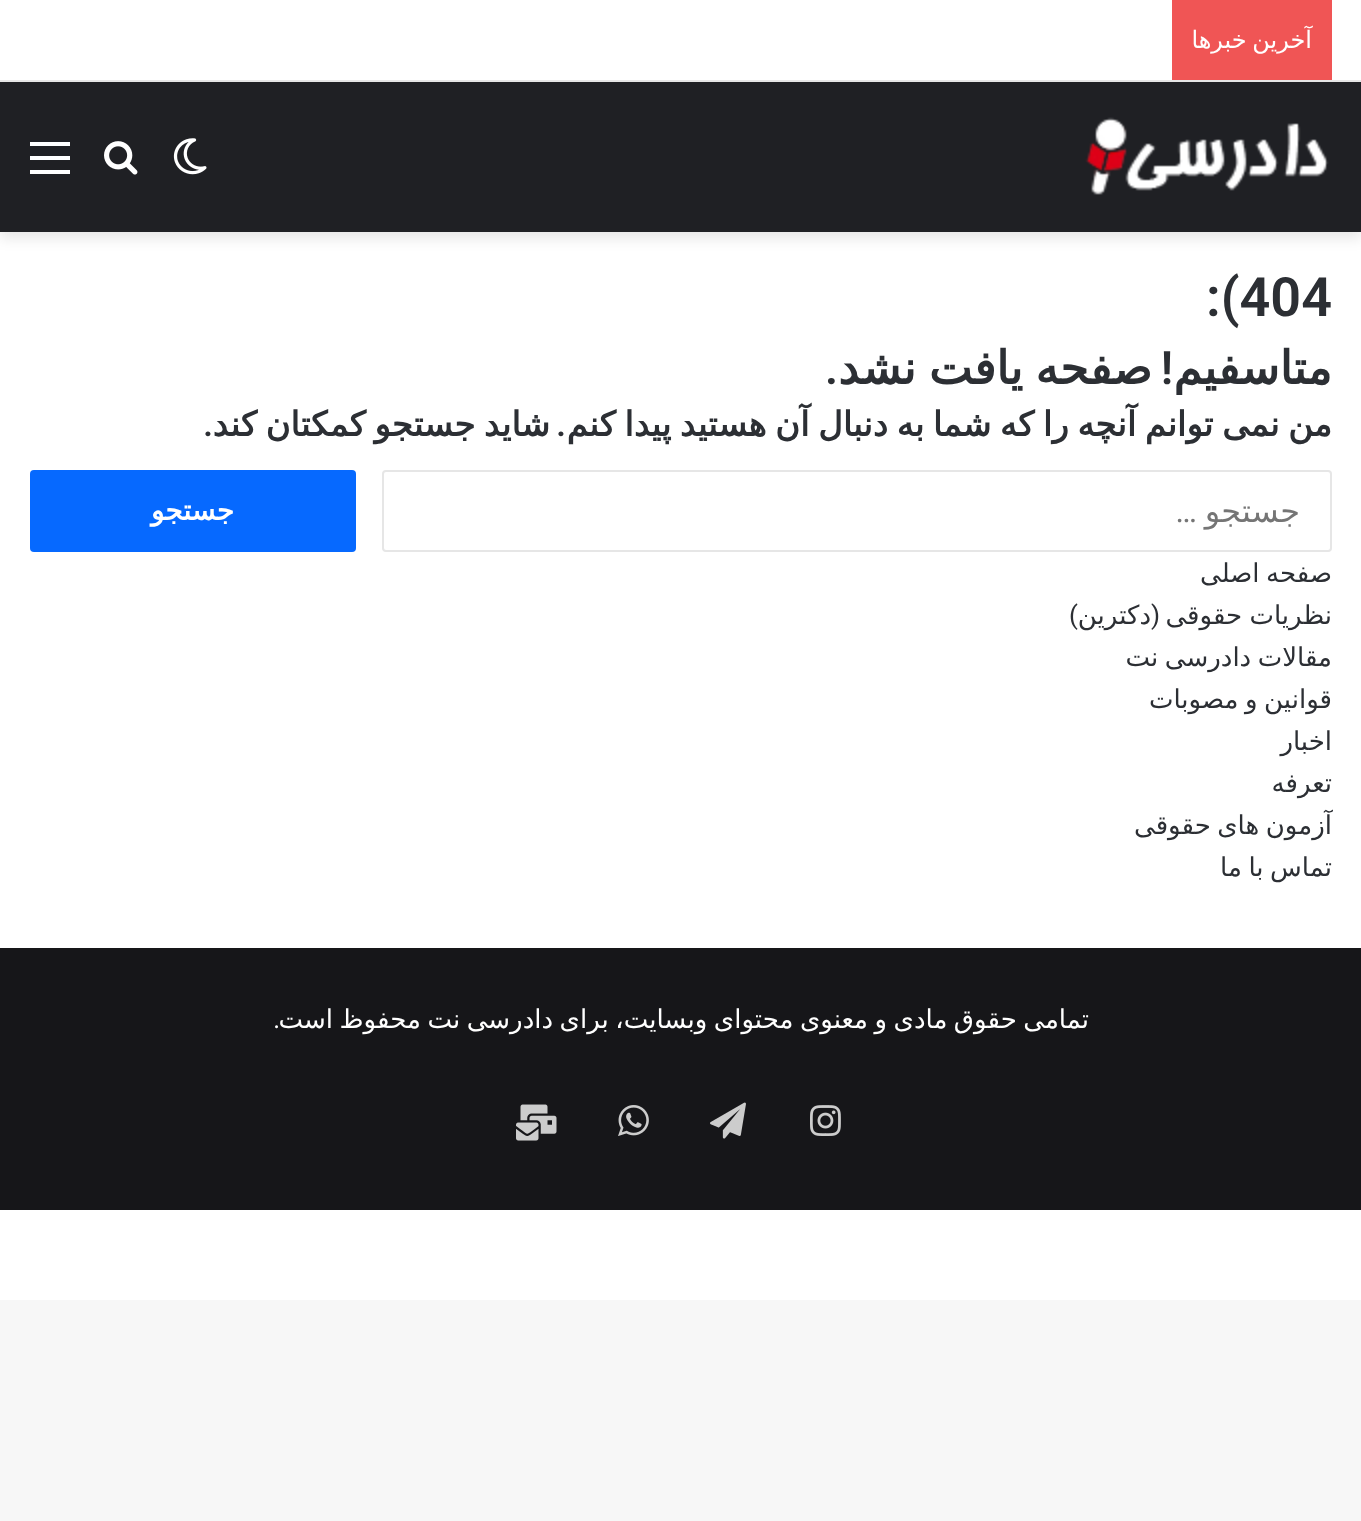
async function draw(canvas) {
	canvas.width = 1361;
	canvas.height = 1521;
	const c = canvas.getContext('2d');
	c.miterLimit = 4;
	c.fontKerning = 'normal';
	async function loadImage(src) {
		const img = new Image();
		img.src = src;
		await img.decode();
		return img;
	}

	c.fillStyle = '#f7f7f7';
	c.fillRect(0, 0, 1361, 1521);
	c.fillStyle = '#fff';
	c.fillRect(0, 232, 1361, 1068);
	c.fillStyle = '#0000001a';
	c.filter = 'blur(7px)';
	c.beginPath();
	c.rect(0, 88, 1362, 150);
	c.fill();
	c.filter = 'none';
	for (const [x, y, w, h, color] of [
		[0, 0, 1361, 80, '#fff'],
		[0, 80, 1361, 2, '#e6e6e6'],
		[1172, 0, 160, 80, '#f05555'],
	]) {
		c.fillStyle = color;
		c.fillRect(x, y, w, h);
	}
	c.wordSpacing = '-2px';
	c.direction = 'rtl';
	c.font = '24px DejaVu Sans';
	c.fillStyle = '#fff';
	c.fillText('آخرین خبرها', 1312, 48);
	c.fillStyle = '#1f2024';
	c.fillRect(0, 82, 1361, 150);
	c.drawImage(await loadImage('img1.png'), 1085, 117, 244, 78);
	c.drawImage(await loadImage('img2.png'), 173, 138, 34, 37);
	c.drawImage(await loadImage('img3.png'), 104, 141, 34, 34);
	for (const [x, y, w, h, color] of [
		[30, 156, 40, 4, '#fff'],
		[30, 142, 40, 4, '#fff'],
		[30, 170, 40, 4, '#fff'],
	]) {
		c.fillStyle = color;
		c.fillRect(x, y, w, h);
	}
	c.wordSpacing = '0px';
	c.direction = 'ltr';
	c.font = '600 54px Roboto';
	c.fillStyle = '#2c2f34';
	c.fillText(':(404', 1206, 316);
	c.direction = 'rtl';
	c.font = 'bold 46px DejaVu Sans';
	c.fillText('متاسفیم', 1332, 384);
	c.font = '600 46px Roboto';
	c.fillText('!', 1173, 384);
	c.wordSpacing = '-2px';
	c.font = 'bold 46px DejaVu Sans';
	c.fillText('صفحه یافت نشد', 1152, 384);
	c.wordSpacing = '0px';
	c.font = '600 46px Roboto';
	c.fillText('.', 838, 384);
	c.wordSpacing = '-2.25px';
	c.font = 'bold 34px DejaVu Sans';
	c.fillText('من نمی توانم آنچه را که شما به دنبال آن هستید پیدا کنم', 1332, 436);
	c.wordSpacing = '0px';
	c.font = '600 34px Roboto';
	c.fillText('.', 566, 436);
	c.wordSpacing = '-2.25px';
	c.font = 'bold 34px DejaVu Sans';
	c.fillText('شاید جستجو کمکتان کند', 550, 436);
	c.wordSpacing = '0px';
	c.font = '600 34px Roboto';
	c.fillText('.', 213, 436);
	c.beginPath();
	c.roundRect(383, 471, 948, 80, 3);
	c.strokeStyle = '#e6e6e6';
	c.lineWidth = 2;
	c.stroke();
	c.font = '32px DejaVu Sans';
	c.fillStyle = '#757575';
	c.fillText('جستجو', 1300, 522);
	c.font = '32px Roboto';
	c.fillText('…', 1197, 522);
	c.fillStyle = '#0669ff';
	c.beginPath();
	c.roundRect(30, 470, 326, 82, 4);
	c.fill();
	c.font = 'bold 28px DejaVu Sans';
	c.fillStyle = '#fff';
	c.fillText('جستجو', 234, 520);
	c.wordSpacing = '-1.75px';
	c.font = '26px DejaVu Sans';
	c.fillStyle = '#2c2f34';
	c.fillText('صفحه اصلی', 1332, 582);
	c.wordSpacing = '-1px';
	c.fillText('نظریات حقوقی', 1332, 624);
	c.wordSpacing = '0px';
	c.font = '26px Roboto';
	c.fillText('(', 1160, 624);
	c.font = '26px DejaVu Sans';
	c.fillText('دکترین', 1151, 624);
	c.font = '26px Roboto';
	c.fillText(')', 1078, 624);
	c.wordSpacing = '-1.75px';
	c.font = '26px DejaVu Sans';
	c.fillText('مقالات دادرسی نت', 1332, 666);
	c.fillText('قوانین و مصوبات', 1332, 708);
	c.wordSpacing = '0px';
	c.fillText('اخبار', 1332, 750);
	c.fillText('تعرفه', 1332, 792);
	c.wordSpacing = '-1.75px';
	c.fillText('آزمون های حقوقی', 1332, 834);
	c.fillText('تماس با ما', 1332, 876);
	c.fillStyle = '#161619';
	c.fillRect(0, 948, 1361, 262);
	c.fillStyle = '#fff';
	c.fillText('تمامی حقوق مادی و معنوی محتوای وبسایت، برای دادرسی نت محفوظ است', 1089, 1028);
	c.wordSpacing = '0px';
	c.font = '26px Roboto';
	c.fillText('.', 280, 1028);
	c.drawImage(await loadImage('img4.png'), 810, 1105, 31, 31);
	c.drawImage(await loadImage('img5.png'), 710, 1102, 36, 37);
	c.drawImage(await loadImage('img6.png'), 618, 1105, 31, 31);
	c.drawImage(await loadImage('img7.png'), 516, 1104, 41, 37);
}

draw(document.querySelector('canvas'));
